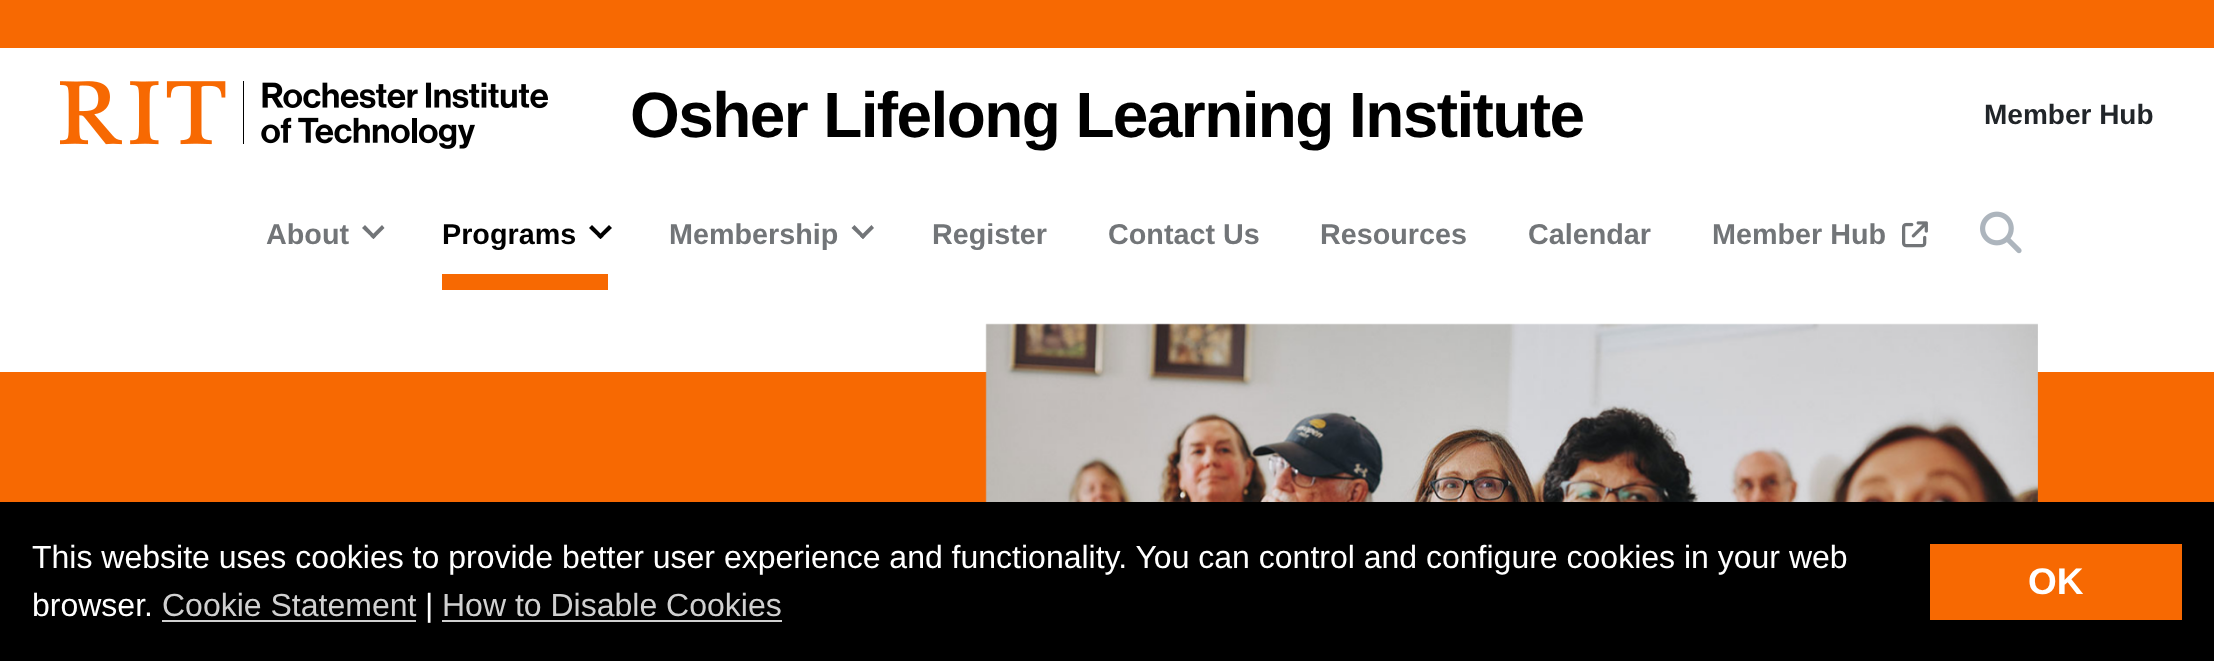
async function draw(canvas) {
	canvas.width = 2214;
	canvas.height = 661;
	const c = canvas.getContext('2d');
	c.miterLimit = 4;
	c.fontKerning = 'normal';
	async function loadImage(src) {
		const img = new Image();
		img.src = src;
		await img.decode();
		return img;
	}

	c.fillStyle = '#fff';
	c.fillRect(0, 0, 2214, 661);
	c.fillStyle = '#f76902';
	c.fillRect(0, 0, 2214, 48);
	c.drawImage(await loadImage('img1.png'), 60, 81, 488, 68);
	c.letterSpacing = '-1.6px';
	c.font = 'bold 64px Liberation Sans';
	c.fillStyle = '#000';
	c.fillText('Osher Lifelong Learning Institute', 630, 137);
	c.letterSpacing = '0px';
	c.font = 'bold 28px Liberation Sans';
	c.fillStyle = '#212529';
	c.fillText('Member Hub', 1984, 124);
	c.font = 'bold 28.75px Liberation Sans';
	c.fillStyle = '#727578';
	c.fillText('About', 266, 244);
	c.beginPath();
	c.moveTo(384.5, 228);
	c.lineTo(373.5, 239);
	c.lineTo(370.5, 236.5);
	c.lineTo(382, 225);
	c.closePath();
	c.fill();
	c.beginPath();
	c.moveTo(376, 236.5);
	c.lineTo(373.5, 239);
	c.lineTo(362, 228);
	c.lineTo(365, 225);
	c.closePath();
	c.fill();
	c.fillStyle = '#000';
	c.fillText('Programs', 442, 244);
	c.beginPath();
	c.moveTo(612, 228);
	c.lineTo(600.5, 239);
	c.lineTo(597.5, 236.5);
	c.lineTo(609, 225);
	c.closePath();
	c.fill();
	c.beginPath();
	c.moveTo(603.5, 236.5);
	c.lineTo(600.5, 239);
	c.lineTo(589, 228);
	c.lineTo(592, 225);
	c.closePath();
	c.fill();
	c.fillStyle = '#f76902';
	c.fillRect(442, 274, 166, 16);
	c.fillStyle = '#727578';
	c.fillText('Membership', 669, 244);
	c.beginPath();
	c.moveTo(874, 228);
	c.lineTo(863, 239);
	c.lineTo(860, 236.5);
	c.lineTo(871.5, 225);
	c.closePath();
	c.fill();
	c.beginPath();
	c.moveTo(865.5, 236.5);
	c.lineTo(863, 239);
	c.lineTo(851.5, 228);
	c.lineTo(854.5, 225);
	c.closePath();
	c.fill();
	for (const [text, x, y] of [
		['Register', 932, 244],
		['Contact Us', 1108, 244],
		['Resources', 1320, 244],
		['Calendar', 1528, 244],
		['Member Hub', 1712, 244],
	]) {
		c.fillText(text, x, y);
	}
	c.drawImage(await loadImage('img2.png'), 1902, 221, 26, 27);
	c.drawImage(await loadImage('img3.png'), 1980, 211, 42, 43);
	c.fillStyle = '#f76902';
	c.fillRect(0, 372, 2214, 130);
	c.drawImage(await loadImage('img4.png'), 985, 323, 1053, 179);
	c.fillStyle = '#000';
	c.fillRect(0, 502, 2214, 159);
	c.font = '32px Liberation Sans';
	c.fillStyle = '#fff';
	c.fillText('This website uses cookies to provide better user experience and functionality. You can control and configure cookies in your web', 32, 568);
	c.fillText('browser.', 32, 616);
	c.fillStyle = '#d0d0d0';
	c.fillText('Cookie Statement', 162, 616);
	c.fillRect(162, 620, 254, 2);
	c.fillStyle = '#fff';
	c.fillText('|', 425, 616);
	c.fillStyle = '#d0d0d0';
	c.fillText('How to Disable Cookies', 442, 616);
	c.fillRect(442, 620, 340, 2);
	c.fillStyle = '#f76902';
	c.fillRect(1930, 544, 252, 76);
	c.font = 'bold 37px Liberation Sans';
	c.fillStyle = '#fff';
	c.fillText('OK', 2028, 594);
}

draw(document.querySelector('canvas'));
